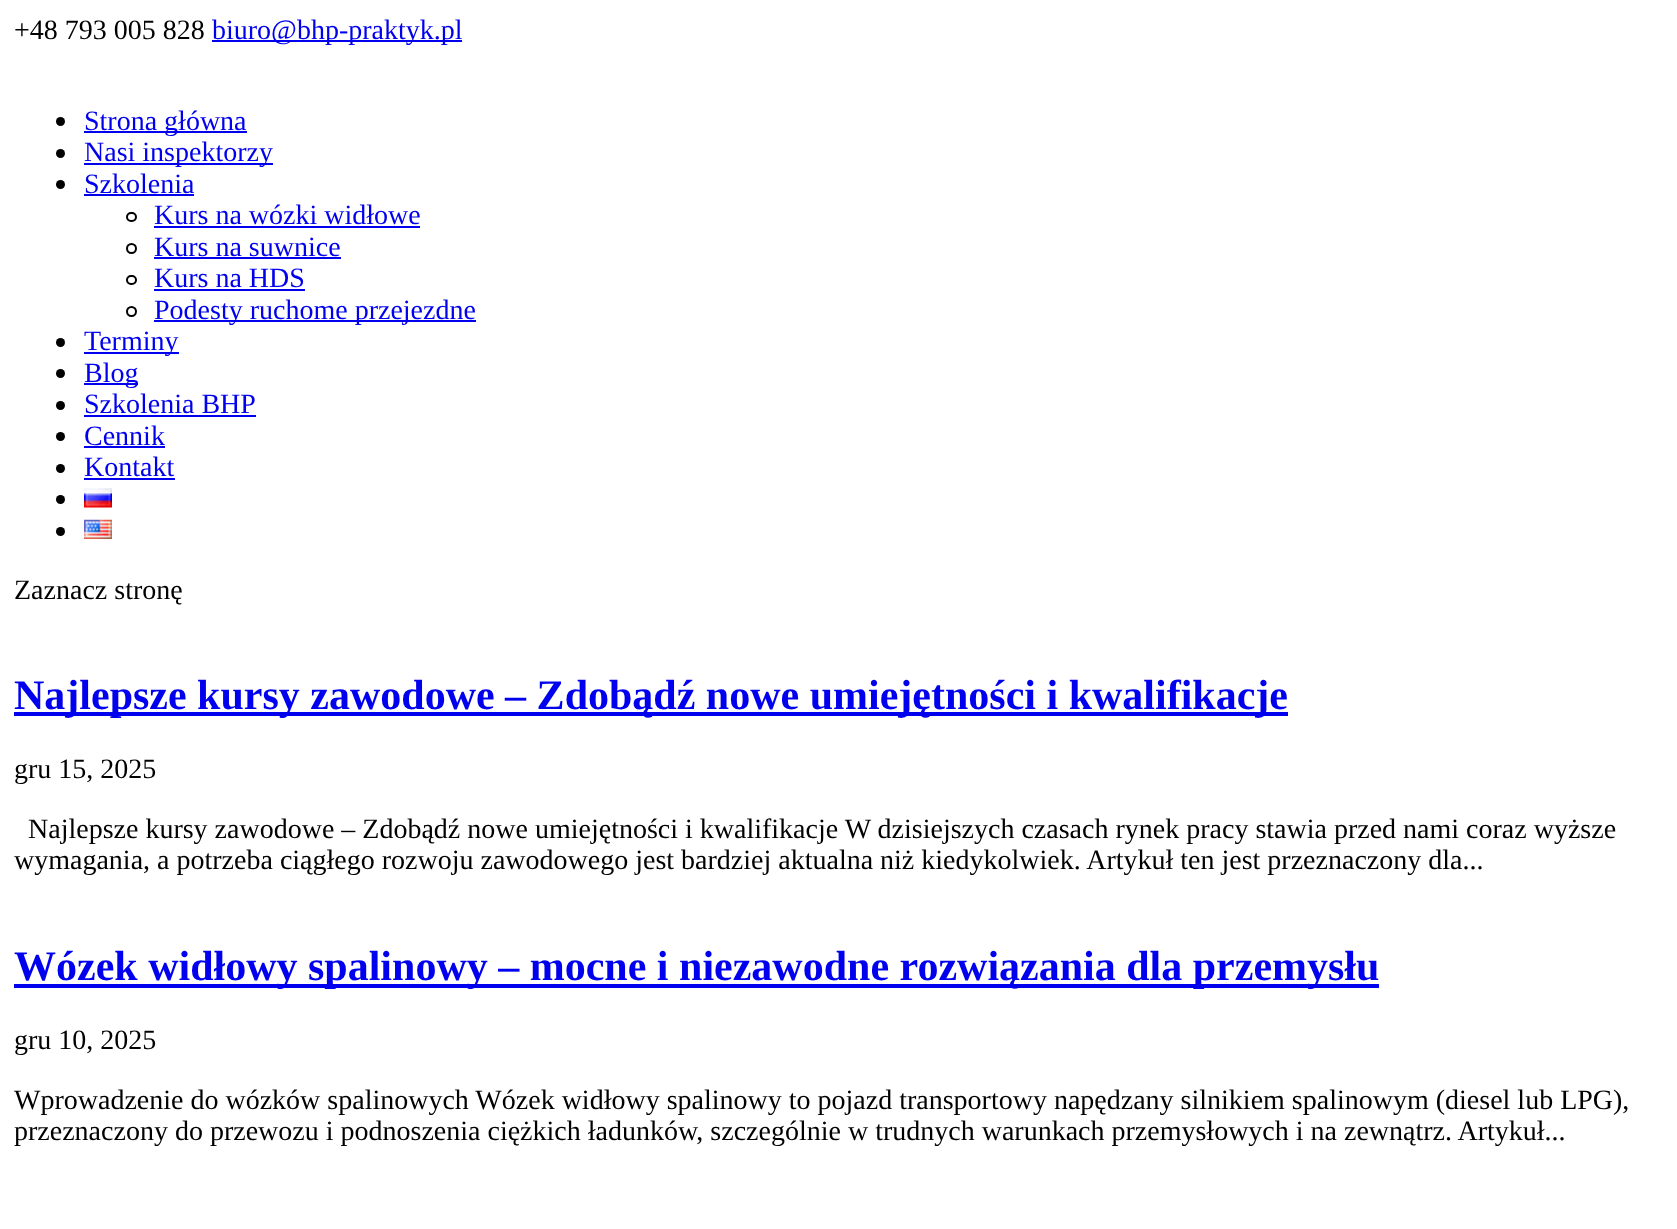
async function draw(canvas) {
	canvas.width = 1677;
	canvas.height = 1229;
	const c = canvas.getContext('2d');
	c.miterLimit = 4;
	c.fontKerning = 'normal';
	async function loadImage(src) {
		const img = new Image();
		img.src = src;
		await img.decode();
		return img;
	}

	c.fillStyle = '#fff';
	c.fillRect(0, 0, 1677, 1229);
	c.font = '28px Liberation Serif';
	c.fillStyle = '#000';
	c.fillText('+48 793 005 828', 14, 39);
	c.fillStyle = '#00e';
	c.fillRect(212, 40, 250, 2);
	c.fillText('biuro@bhp-praktyk.pl', 212, 39);
	c.fillStyle = '#000';
	c.beginPath();
	c.arc(60.5, 121.5, 4.5, 0, 2 * Math.PI);
	c.fill();
	c.fillStyle = '#00e';
	c.fillRect(84, 131, 163, 2);
	c.fillText('Strona główna', 84, 130);
	c.fillStyle = '#000';
	c.beginPath();
	c.arc(60.5, 153.5, 4.5, 0, 2 * Math.PI);
	c.fill();
	c.fillStyle = '#00e';
	c.fillRect(84, 163, 189, 2);
	c.fillText('Nasi inspektorzy', 84, 161);
	c.fillStyle = '#000';
	c.beginPath();
	c.arc(60.5, 184.5, 4.5, 0, 2 * Math.PI);
	c.fill();
	c.fillStyle = '#00e';
	c.fillText('Szkolenia', 84, 193);
	c.fillRect(84, 194, 110, 2);
	c.beginPath();
	c.roundRect(127, 213, 9, 8, 4);
	c.strokeStyle = '#000';
	c.lineWidth = 2;
	c.stroke();
	c.fillText('Kurs na wózki widłowe', 154, 224);
	c.fillRect(154, 226, 266, 2);
	c.beginPath();
	c.arc(131.5, 248.5, 4.5, 0, 2 * Math.PI);
	c.stroke();
	c.fillText('Kurs na suwnice', 154, 256);
	c.fillRect(154, 257, 187, 2);
	c.beginPath();
	c.roundRect(127, 276, 9, 8, 4);
	c.stroke();
	c.fillText('Kurs na HDS', 154, 287);
	c.fillRect(154, 289, 151, 2);
	c.beginPath();
	c.arc(131.5, 311.5, 4.5, 0, 2 * Math.PI);
	c.stroke();
	c.fillRect(154, 320, 322, 2);
	c.fillText('Podesty ruchome przejezdne', 154, 319);
	c.fillStyle = '#000';
	c.beginPath();
	c.arc(60.5, 342.5, 4.5, 0, 2 * Math.PI);
	c.fill();
	c.fillStyle = '#00e';
	c.fillRect(84, 352, 95, 2);
	c.fillText('Terminy', 84, 350);
	c.fillStyle = '#000';
	c.beginPath();
	c.arc(60.5, 373.5, 4.5, 0, 2 * Math.PI);
	c.fill();
	c.fillStyle = '#00e';
	c.fillRect(84, 383, 54, 2);
	c.fillText('Blog', 84, 382);
	c.fillStyle = '#000';
	c.beginPath();
	c.arc(60.5, 405.5, 4.5, 0, 2 * Math.PI);
	c.fill();
	c.fillStyle = '#00e';
	c.fillText('Szkolenia BHP', 84, 413);
	c.fillRect(84, 415, 172, 2);
	c.fillStyle = '#000';
	c.beginPath();
	c.arc(60.5, 436.5, 4.5, 0, 2 * Math.PI);
	c.fill();
	c.fillStyle = '#00e';
	c.fillText('Cennik', 84, 445);
	c.fillRect(84, 446, 81, 2);
	c.fillStyle = '#000';
	c.beginPath();
	c.arc(60.5, 468.5, 4.5, 0, 2 * Math.PI);
	c.fill();
	c.fillStyle = '#00e';
	c.fillText('Kontakt', 84, 476);
	c.fillRect(84, 478, 91, 2);
	c.fillStyle = '#000';
	c.beginPath();
	c.arc(60.5, 499.5, 4.5, 0, 2 * Math.PI);
	c.fill();
	c.drawImage(await loadImage('img1.png'), 84, 488, 28, 20);
	c.beginPath();
	c.arc(60.5, 531.5, 4.5, 0, 2 * Math.PI);
	c.fill();
	c.drawImage(await loadImage('img2.png'), 84, 519, 28, 20);
	c.fillText('Zaznacz stronę', 14, 599);
	c.fillStyle = '#00e';
	c.fillRect(14, 712, 1274, 4);
	c.font = 'bold 42px Liberation Serif';
	c.fillText('Najlepsze kursy zawodowe – Zdobądź nowe umiejętności i kwalifikacje', 14, 709);
	c.font = '28px Liberation Serif';
	c.fillStyle = '#000';
	for (const [text, x, y] of [
		['gru 15, 2025', 14, 778],
		['Najlepsze kursy zawodowe – Zdobądź nowe umiejętności i kwalifikacje W dzisiejszych czasach rynek pracy stawia przed nami coraz wyższe', 28, 838],
		['wymagania, a potrzeba ciągłego rozwoju zawodowego jest bardziej aktualna niż kiedykolwiek. Artykuł ten jest przeznaczony dla...', 14, 869],
	]) {
		c.fillText(text, x, y);
	}
	c.fillStyle = '#00e';
	c.fillRect(14, 984, 1365, 4);
	c.font = 'bold 42px Liberation Serif';
	c.fillText('Wózek widłowy spalinowy – mocne i niezawodne rozwiązania dla przemysłu', 14, 980);
	c.font = '28px Liberation Serif';
	c.fillStyle = '#000';
	for (const [text, x, y] of [
		['gru 10, 2025', 14, 1049],
		['Wprowadzenie do wózków spalinowych Wózek widłowy spalinowy to pojazd transportowy napędzany silnikiem spalinowym (diesel lub LPG),', 14, 1109],
		['przeznaczony do przewozu i podnoszenia ciężkich ładunków, szczególnie w trudnych warunkach przemysłowych i na zewnątrz. Artykuł...', 14, 1140],
	]) {
		c.fillText(text, x, y);
	}
}

draw(document.querySelector('canvas'));
